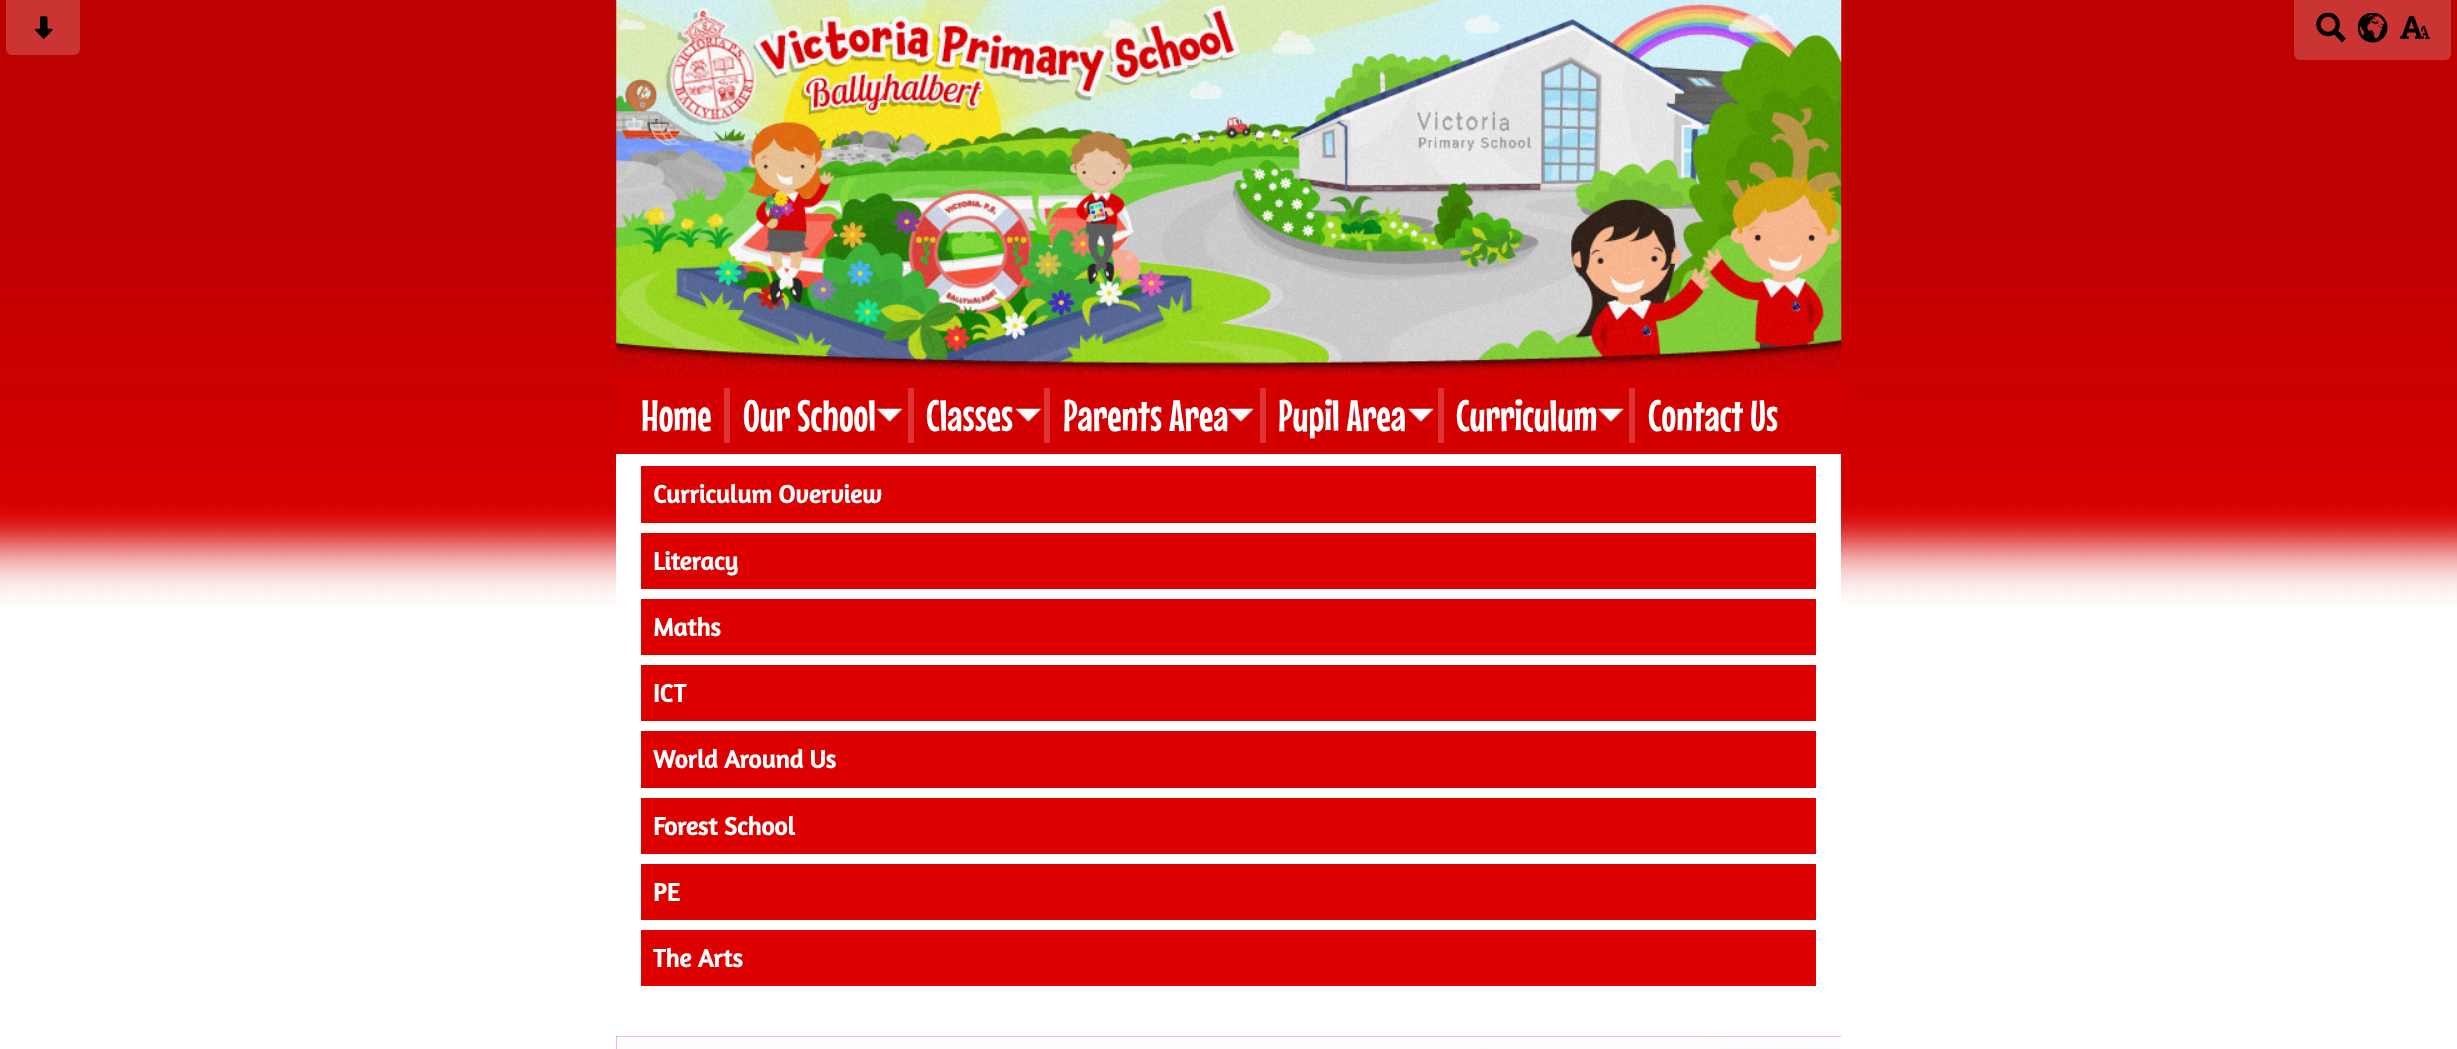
async function draw(canvas) {
	canvas.width = 2457;
	canvas.height = 1049;
	const c = canvas.getContext('2d');
	c.miterLimit = 4;
	c.fontKerning = 'normal';
	async function loadImage(src) {
		const img = new Image();
		img.src = src;
		await img.decode();
		return img;
	}

	c.fillStyle = '#fff';
	c.fillRect(0, 0, 2457, 1049);
	c.drawImage(await loadImage('img1.png'), 0, 0, 2457, 606);
	c.fillStyle = '#ca3433';
	c.beginPath();
	c.roundRect(6, 0, 74, 55, [0, 0, 6, 6]);
	c.fill();
	c.drawImage(await loadImage('img2.png'), 35, 16, 18, 23);
	c.beginPath();
	c.roundRect(2294, 0, 157, 60, [0, 0, 6, 6]);
	c.fill();
	c.drawImage(await loadImage('img3.png'), 2316, 13, 30, 30);
	c.drawImage(await loadImage('img4.png'), 2358, 13, 30, 30);
	c.drawImage(await loadImage('img5.png'), 2400, 16, 30, 23);
	c.drawImage(await loadImage('img6.png'), 616, 0, 1226, 375);
	c.fillStyle = '#d40000';
	c.fillRect(616, 375, 1225, 79);
	c.fillStyle = '#d33';
	c.fillRect(724, 388, 6, 55);
	c.font = '44px Mouse Memoirs';
	c.fillStyle = '#fff';
	c.fillText('Home', 641, 431);
	c.fillStyle = '#d33';
	c.fillRect(908, 388, 6, 55);
	c.drawImage(await loadImage('img7.png'), 876, 408, 27, 14);
	c.fillStyle = '#fff';
	c.fillText('Our School', 743, 431);
	c.fillStyle = '#d33';
	c.fillRect(1044, 388, 6, 55);
	c.drawImage(await loadImage('img8.png'), 1015, 408, 27, 14);
	c.fillStyle = '#fff';
	c.fillText('Classes', 926, 431);
	c.fillStyle = '#d33';
	c.fillRect(1260, 388, 6, 55);
	c.drawImage(await loadImage('img9.png'), 1227, 408, 27, 14);
	c.fillStyle = '#fff';
	c.fillText('Parents Area', 1063, 431);
	c.fillStyle = '#d33';
	c.fillRect(1438, 388, 6, 55);
	c.drawImage(await loadImage('img9.png'), 1407, 408, 27, 14);
	c.fillStyle = '#fff';
	c.fillText('Pupil Area', 1278, 431);
	c.fillStyle = '#d33';
	c.fillRect(1629, 388, 6, 55);
	c.drawImage(await loadImage('img9.png'), 1597, 408, 27, 14);
	c.fillStyle = '#fff';
	c.fillText('Curriculum', 1456, 431);
	c.fillText('Contact Us', 1648, 431);
	c.fillRect(616, 454, 1225, 152);
	c.fillStyle = '#dc0000';
	c.fillRect(641, 466, 1175, 57);
	c.font = 'bold 25.5px Amaranth';
	c.fillStyle = '#fff';
	c.fillText('Curriculum Overview', 653, 503);
	c.fillStyle = '#dc0000';
	c.fillRect(641, 533, 1175, 56);
	c.fillStyle = '#fff';
	c.fillText('Literacy', 653, 570);
	c.fillStyle = '#dc0000';
	c.fillRect(641, 599, 1175, 56);
	c.fillStyle = '#fff';
	c.fillText('Maths', 653, 636);
	c.fillStyle = '#dc0000';
	c.fillRect(641, 665, 1175, 56);
	c.fillStyle = '#fff';
	c.fillText('ICT', 653, 702);
	c.fillStyle = '#dc0000';
	c.fillRect(641, 731, 1175, 57);
	c.fillStyle = '#fff';
	c.fillText('World Around Us', 653, 768);
	c.fillStyle = '#dc0000';
	c.fillRect(641, 798, 1175, 56);
	c.fillStyle = '#fff';
	c.fillText('Forest School', 653, 835);
	c.fillStyle = '#dc0000';
	c.fillRect(641, 864, 1175, 56);
	c.fillStyle = '#fff';
	c.fillText('PE', 653, 901);
	c.fillStyle = '#dc0000';
	c.fillRect(641, 930, 1175, 56);
	c.fillStyle = '#fff';
	c.fillText('The Arts', 653, 967);
	c.fillStyle = '#c10100';
	c.fillRect(616, 1036, 1225, 13);
	c.drawImage(await loadImage('img10.png'), 616, 1036, 1225, 13);
}

draw(document.querySelector('canvas'));
